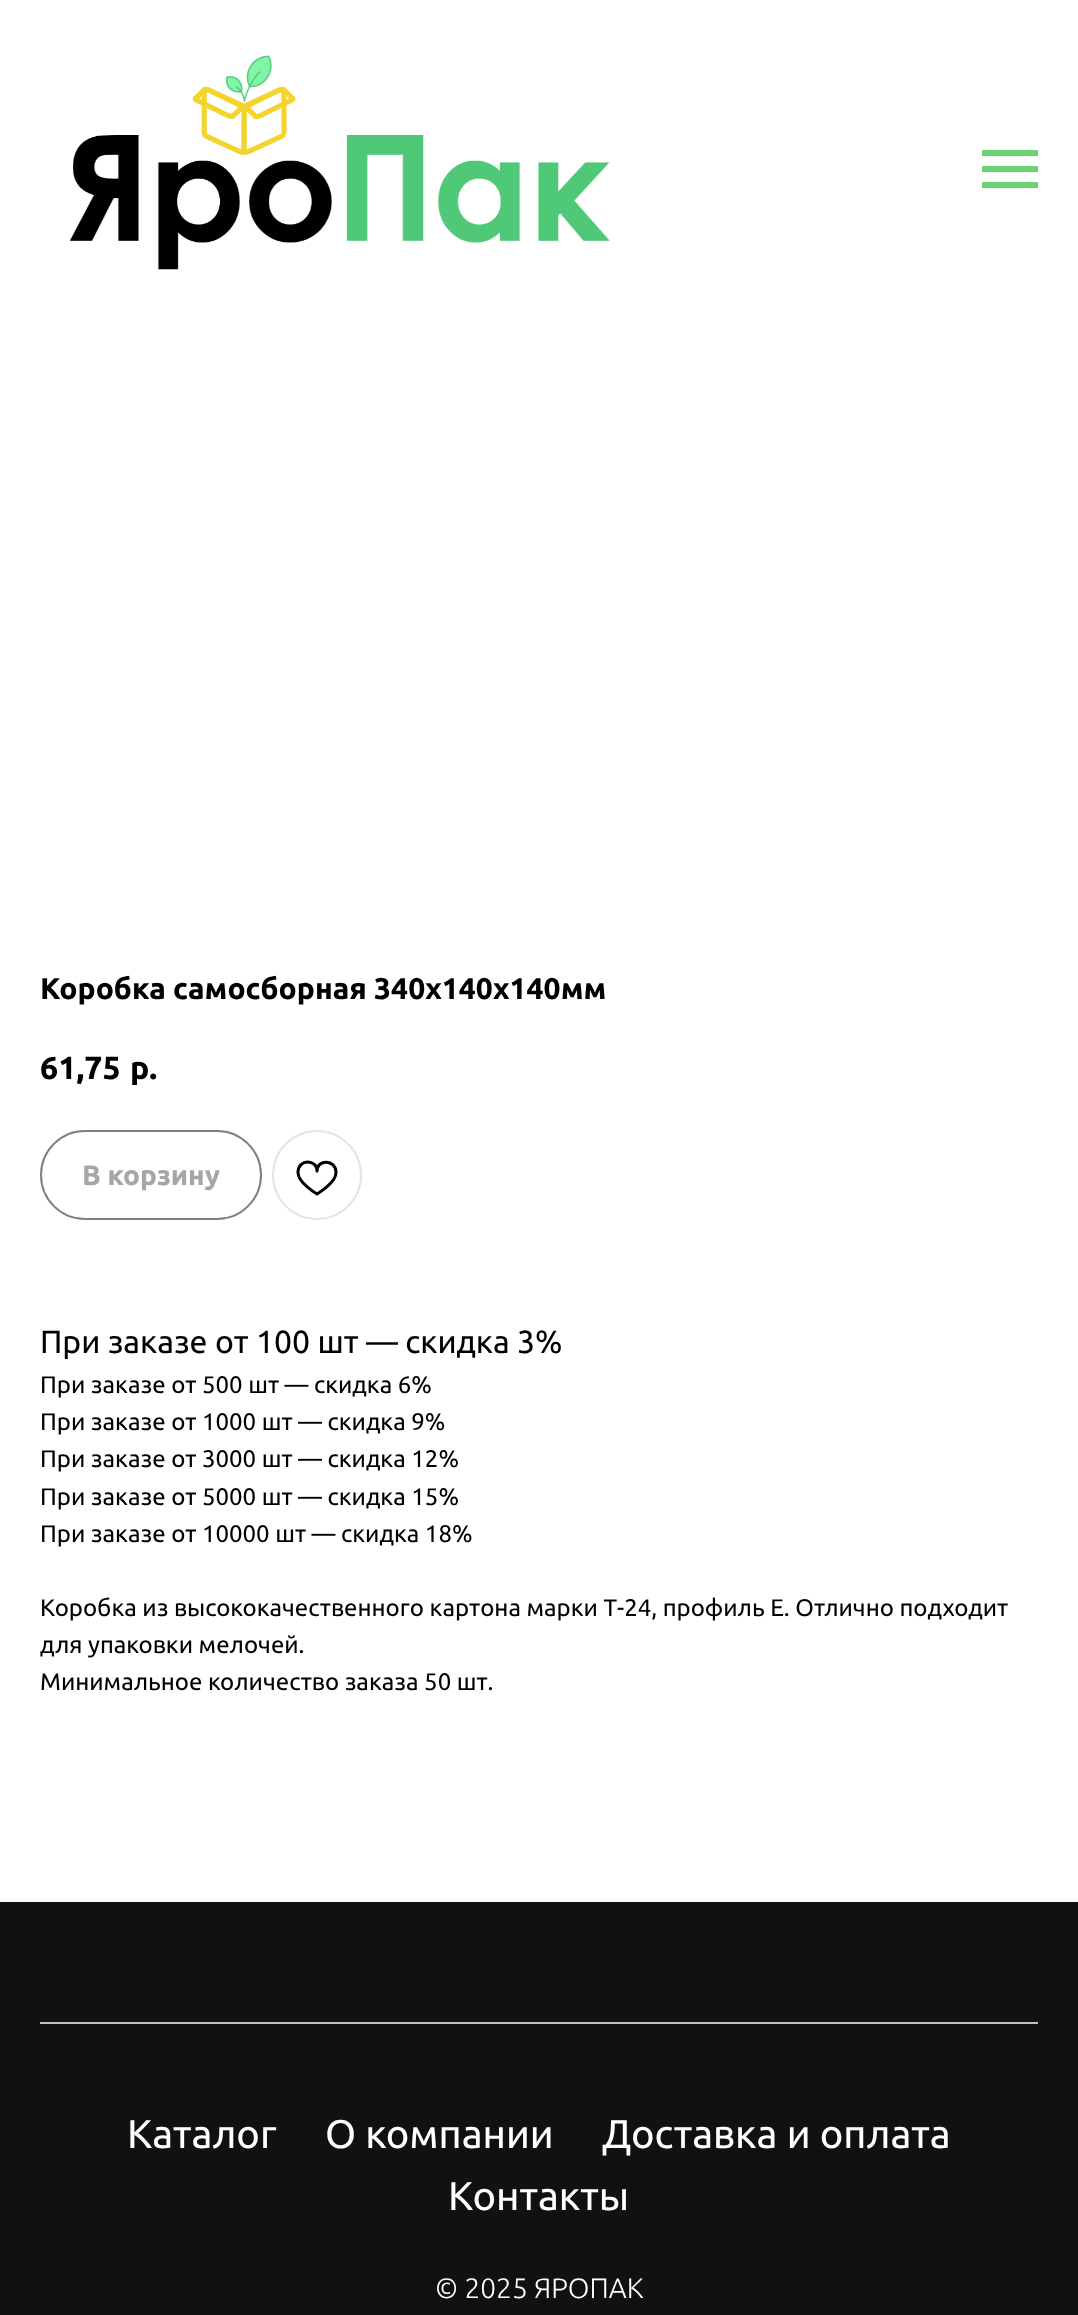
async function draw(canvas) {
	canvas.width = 1078;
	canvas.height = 2315;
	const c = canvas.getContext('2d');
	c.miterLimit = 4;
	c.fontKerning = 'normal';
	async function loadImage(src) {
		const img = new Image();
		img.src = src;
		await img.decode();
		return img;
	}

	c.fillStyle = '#fff';
	c.fillRect(0, 0, 1078, 2315);
	c.drawImage(await loadImage('img1.png'), 70, 55, 540, 215);
	for (const [x, y, w, h, color] of [
		[982, 150, 56, 6, '#6cd373'],
		[982, 166, 56, 6, '#6cd373'],
		[982, 182, 56, 6, '#6cd373'],
	]) {
		c.fillStyle = color;
		c.fillRect(x, y, w, h);
	}
	c.font = 'bold 30px Ubuntu';
	c.fillStyle = '#000';
	c.fillText('Коробка самосборная 340х140х140мм', 40, 999);
	c.font = 'bold 32px Ubuntu';
	c.fillText('61,75', 40, 1079);
	c.fillText('р.', 130, 1079);
	c.beginPath();
	c.roundRect(41, 1131, 220, 88, 44);
	c.strokeStyle = '#808080';
	c.lineWidth = 2;
	c.stroke();
	c.font = 'bold 28px Ubuntu';
	c.fillStyle = '#a6a6a6';
	c.fillText('В корзину', 82, 1185);
	c.beginPath();
	c.arc(317, 1175, 44, 0, 2 * Math.PI);
	c.strokeStyle = '#e4e4e4';
	c.stroke();
	c.beginPath();
	c.moveTo(336, 1172.5);
	c.bezierCurveTo(336, 1183, 317, 1194, 317, 1194);
	c.bezierCurveTo(317, 1194, 298, 1183, 298, 1172.5);
	c.bezierCurveTo(298, 1158.5, 317, 1159, 317, 1171);
	c.bezierCurveTo(317, 1159, 336, 1159, 336, 1172.5);
	c.closePath();
	c.strokeStyle = '#000';
	c.lineWidth = 3;
	c.lineJoin = 'round';
	c.stroke();
	c.font = '32px Ubuntu';
	c.fillStyle = '#000';
	c.fillText('При заказе от 100 шт — скидка 3%', 40, 1353);
	c.font = '24px Ubuntu';
	for (const [text, x, y] of [
		['При заказе от 500 шт — скидка 6%', 40, 1393],
		['При заказе от 1000 шт — скидка 9%', 40, 1430],
		['При заказе от 3000 шт — скидка 12%', 40, 1467],
		['При заказе от 5000 шт — скидка 15%', 40, 1505],
		['При заказе от 10000 шт — скидка 18%', 40, 1542],
		['Коробка из высококачественного картона марки Т-24, профиль Е. Отлично подходит', 40, 1616],
		['для упаковки мелочей.', 40, 1653],
		['Минимальное количество заказа 50 шт.', 40, 1690],
	]) {
		c.fillText(text, x, y);
	}
	c.fillStyle = '#111';
	c.fillRect(0, 1902, 1078, 413);
	c.fillStyle = '#c2c2c2';
	c.fillRect(40, 2022, 998, 2);
	c.font = '40px Ubuntu';
	c.fillStyle = '#fff';
	for (const [text, x, y] of [
		['Каталог', 127, 2148],
		['О компании', 325, 2148],
		['Доставка и оплата', 602, 2148],
		['Контакты', 448, 2210],
	]) {
		c.fillText(text, x, y);
	}
	c.font = '300 28px Ubuntu';
	c.fillText('© 2025 ЯРОПАК', 435, 2298);
}

draw(document.querySelector('canvas'));
